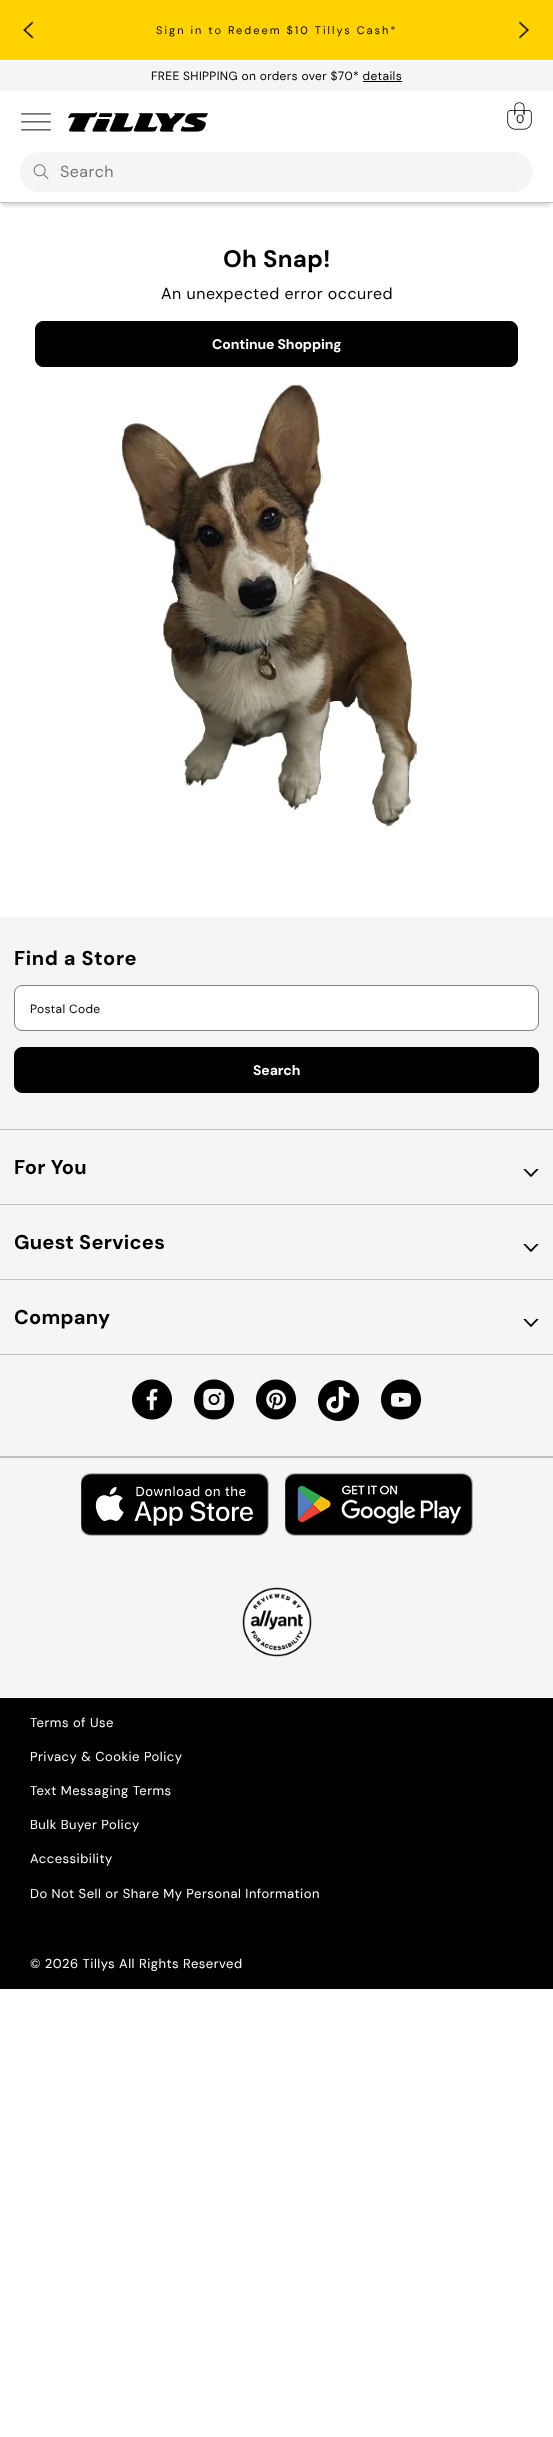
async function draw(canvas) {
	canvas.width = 553;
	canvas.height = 2437;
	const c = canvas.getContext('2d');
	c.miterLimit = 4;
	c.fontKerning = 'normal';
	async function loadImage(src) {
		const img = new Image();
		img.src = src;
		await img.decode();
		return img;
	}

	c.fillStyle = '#fff';
	c.fillRect(0, 0, 553, 2437);
	c.fillStyle = '#ffd200';
	c.fillRect(0, 0, 553, 60);
	c.drawImage(await loadImage('img1.png'), 23, 21, 11, 18);
	c.letterSpacing = '2px';
	c.font = '11px DM Sans';
	c.fillStyle = '#000';
	c.fillText('Sign in to Redeem $10 Tillys Cash*', 156, 34);
	c.drawImage(await loadImage('img2.png'), 518, 21, 11, 18);
	c.fillStyle = '#f5f5f5';
	c.fillRect(0, 61, 553, 30);
	c.letterSpacing = '0.35px';
	c.font = '12px DM Sans';
	c.fillStyle = '#000';
	c.fillText('FREE SHIPPING on orders over $70* details', 151, 80);
	c.fillRect(363, 81, 39, 1);
	c.save();
	c.beginPath();
	c.rect(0, 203, 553, 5);
	c.clip();
	c.fillStyle = '#00000033';
	c.filter = 'blur(2.5px)';
	c.beginPath();
	c.rect(2, 102, 549, 103);
	c.fill();
	c.filter = 'none';
	c.restore();
	c.drawImage(await loadImage('img3.png'), 21, 113, 30, 18);
	c.drawImage(await loadImage('img4.png'), 68, 112, 140, 20);
	c.drawImage(await loadImage('img5.png'), 507, 102, 25, 28);
	c.letterSpacing = '0.5px';
	c.fillText('0', 516, 123);
	c.fillStyle = '#f5f5f5';
	c.beginPath();
	c.roundRect(20, 152, 513, 40, 20);
	c.fill();
	c.drawImage(await loadImage('img6.png'), 33, 164, 16, 15);
	c.font = '16px DM Sans';
	c.fillStyle = '#757575';
	c.fillText('Search', 60, 177);
	c.fillStyle = '#c4bfc1';
	c.fillRect(0, 202, 553, 1);
	c.letterSpacing = '0.25px';
	c.font = 'bold 24px DM Sans';
	c.fillStyle = '#000';
	c.fillText('Oh Snap!', 223, 267);
	c.letterSpacing = '0.5px';
	c.font = '16px DM Sans';
	c.fillText('An unexpected error occured', 161, 299);
	c.beginPath();
	c.roundRect(35.5, 321.5, 482, 45, 7.5);
	c.fill();
	c.strokeStyle = '#000';
	c.stroke();
	c.letterSpacing = '-0.1px';
	c.font = 'bold 14px DM Sans';
	c.fillStyle = '#fff';
	c.fillText('Continue Shopping', 212, 349);
	c.drawImage(await loadImage('img7.png'), 122, 384, 296, 444);
	c.fillStyle = '#f5f5f5';
	c.fillRect(0, 917, 553, 781);
	c.fillStyle = '#c4bfc1';
	c.fillRect(0, 1129, 553, 1);
	c.letterSpacing = '0.6px';
	c.font = 'bold 20px DM Sans';
	c.fillStyle = '#000';
	c.fillText('Find a Store', 14, 965);
	c.fillStyle = '#fff';
	c.beginPath();
	c.roundRect(14.5, 985.5, 524, 45, 7.5);
	c.fill();
	c.strokeStyle = '#808080';
	c.stroke();
	c.letterSpacing = '0.35px';
	c.font = '12px DM Sans';
	c.fillStyle = '#000';
	c.fillText('Postal Code', 30, 1013);
	c.beginPath();
	c.roundRect(14.5, 1047.5, 524, 45, 7.5);
	c.fill();
	c.strokeStyle = '#000';
	c.stroke();
	c.letterSpacing = '-0.1px';
	c.font = 'bold 14px DM Sans';
	c.fillStyle = '#fff';
	c.fillText('Search', 253, 1075);
	c.fillStyle = '#c4bfc1';
	c.fillRect(0, 1204, 553, 1);
	c.letterSpacing = '0.25px';
	c.font = 'bold 20px DM Sans';
	c.fillStyle = '#000';
	c.fillText('For You', 14, 1174);
	c.drawImage(await loadImage('img8.png'), 523, 1169, 16, 8);
	c.fillStyle = '#c4bfc1';
	c.fillRect(0, 1279, 553, 1);
	c.fillStyle = '#000';
	c.fillText('Guest Services', 14, 1249);
	c.drawImage(await loadImage('img8.png'), 523, 1244, 16, 8);
	c.fillStyle = '#c4bfc1';
	c.fillRect(0, 1354, 553, 1);
	c.fillStyle = '#000';
	c.fillText('Company', 14, 1324);
	c.drawImage(await loadImage('img8.png'), 523, 1319, 16, 8);
	c.fillStyle = '#c4bfc1';
	c.fillRect(0, 1456, 553, 2);
	c.drawImage(await loadImage('img9.png'), 132, 1379, 40, 41);
	c.drawImage(await loadImage('img10.png'), 194, 1379, 40, 41);
	c.drawImage(await loadImage('img11.png'), 256, 1379, 40, 41);
	c.drawImage(await loadImage('img12.png'), 318, 1380, 41, 41);
	c.drawImage(await loadImage('img13.png'), 381, 1379, 40, 41);
	c.drawImage(await loadImage('img14.png'), 81, 1473, 188, 63);
	c.drawImage(await loadImage('img15.png'), 285, 1473, 188, 63);
	c.drawImage(await loadImage('img16.png'), 242, 1587, 70, 70);
	c.fillStyle = '#000';
	c.fillRect(0, 1698, 553, 291);
	c.letterSpacing = '0.5px';
	c.font = '13px DM Sans';
	c.fillStyle = '#fff';
	for (const [text, x, y] of [
		['Terms of Use', 30, 1727],
		['Privacy & Cookie Policy', 30, 1761],
		['Text Messaging Terms', 30, 1795],
		['Bulk Buyer Policy', 30, 1829],
		['Accessibility', 30, 1863],
		['Do Not Sell or Share My Personal Information', 30, 1898],
		['© 2026 Tillys All Rights Reserved', 30, 1968],
	]) {
		c.fillText(text, x, y);
	}
}

draw(document.querySelector('canvas'));
